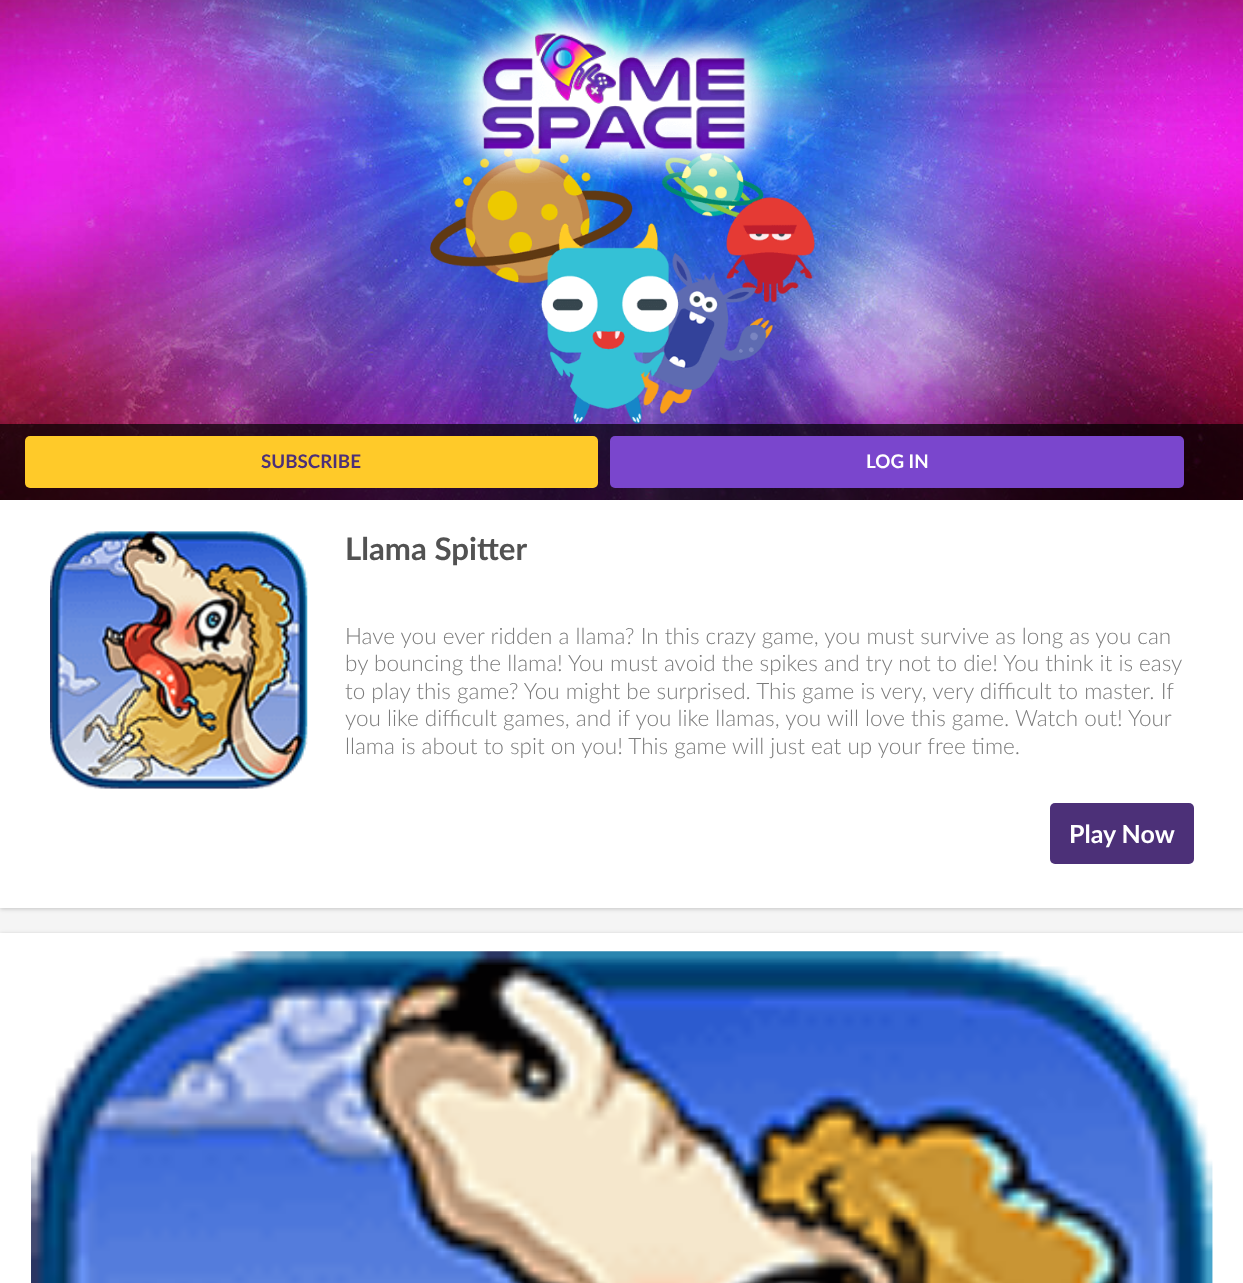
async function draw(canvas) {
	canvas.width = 1243;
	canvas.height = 1283;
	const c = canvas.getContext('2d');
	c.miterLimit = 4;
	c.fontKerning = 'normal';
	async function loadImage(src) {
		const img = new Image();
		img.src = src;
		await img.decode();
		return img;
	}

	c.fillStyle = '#f5f5f5';
	c.fillRect(0, 0, 1243, 1283);
	c.fillStyle = '#00000033';
	c.filter = 'blur(2px)';
	c.beginPath();
	c.rect(0, 501, 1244, 408);
	c.fill();
	c.filter = 'none';
	c.drawImage(await loadImage('img2.png'), 0, 0, 1243, 500);
	c.drawImage(await loadImage('img3.png'), 430, 145, 385, 279);
	c.drawImage(await loadImage('img1.png'), 395, 0, 452, 184);
	c.fillStyle = '#000000b3';
	c.fillRect(0, 424, 1243, 76);
	c.fillStyle = '#ffca29';
	c.beginPath();
	c.roundRect(25, 436, 573, 52, 5);
	c.fill();
	c.font = 'bold 18.75px Lato';
	c.fillStyle = '#4c3078';
	c.fillText('SUBSCRIBE', 261, 468);
	c.fillStyle = '#7a46cd';
	c.beginPath();
	c.roundRect(610, 436, 574, 52, 5);
	c.fill();
	c.fillStyle = '#fff';
	c.fillText('LOG IN', 866, 468);
	c.fillRect(0, 500, 1243, 408);
	c.drawImage(await loadImage('img4.png'), 50, 531, 258, 258);
	c.font = 'bold 31.25px Lato';
	c.fillStyle = '#525252';
	c.fillText('Llama Spitter', 345, 560);
	c.font = '300 22.5px Lato';
	c.fillStyle = '#7b7b7b';
	for (const [text, x, y] of [
		['Have you ever ridden a llama? In this crazy game, you must survive as long as you can', 345, 644],
		['by bouncing the llama! You must avoid the spikes and try not to die! You think it is easy', 345, 671],
		['to play this game? You might be surprised. This game is very, very difficult to master. If', 345, 699],
		['you like difficult games, and if you like llamas, you will love this game.', 345, 726],
		['Watch out! Your', 1015, 726],
		['llama is about to spit on you! This game will just eat up your free time.', 345, 754],
	]) {
		c.fillText(text, x, y);
	}
	c.fillStyle = '#4c3078';
	c.beginPath();
	c.roundRect(1050, 803, 144, 61, 5);
	c.fill();
	c.font = 'bold 25px Lato';
	c.fillStyle = '#fff';
	c.fillText('Play Now', 1069, 843);
	c.fillStyle = '#00000033';
	c.filter = 'blur(2px)';
	c.beginPath();
	c.rect(0, 934, 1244, 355);
	c.fill();
	c.filter = 'none';
	c.fillStyle = '#fff';
	c.fillRect(0, 933, 1243, 350);
	c.drawImage(await loadImage('img5.png'), 31, 951, 1182, 332);
}

draw(document.querySelector('canvas'));
